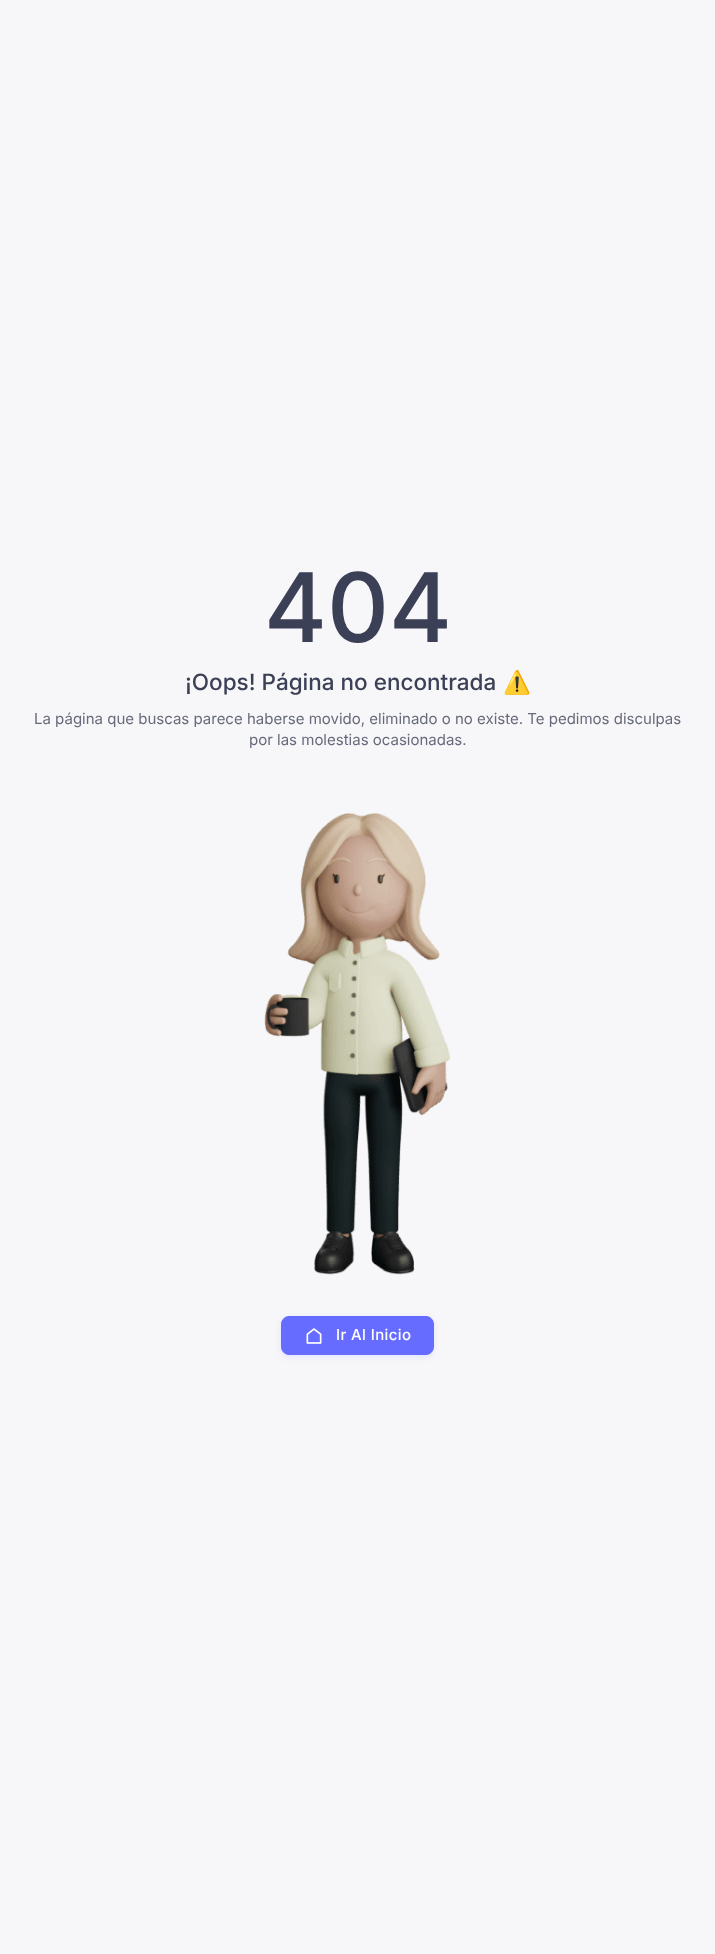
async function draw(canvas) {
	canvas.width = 715;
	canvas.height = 1954;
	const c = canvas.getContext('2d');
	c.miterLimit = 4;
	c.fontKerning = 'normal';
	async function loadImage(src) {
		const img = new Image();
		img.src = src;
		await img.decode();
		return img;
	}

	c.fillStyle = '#f7f7f9';
	c.fillRect(0, 0, 715, 1954);
	c.font = '500 96px Inter';
	c.fillStyle = '#3c4056';
	c.fillText('404', 264, 642);
	c.font = '500 22.5px Inter';
	c.fillText('¡Oops! Página no encontrada', 185, 690);
	c.font = '22.5px Noto Color Emoji';
	c.fillText('⚠️', 503, 690);
	c.font = '15px Inter';
	c.fillStyle = '#676a7b';
	c.fillText('La página que buscas parece haberse movido, eliminado o no existe. Te pedimos disculpas', 34, 724);
	c.fillText('por las molestias ocasionadas.', 249, 745);
	c.drawImage(await loadImage('img1.png'), 264, 813, 187, 462);
	c.fillStyle = '#666cff24';
	c.filter = 'blur(3px)';
	c.beginPath();
	c.roundRect(281, 1318, 153, 39, 8);
	c.fill();
	c.filter = 'none';
	c.fillStyle = '#666cff';
	c.beginPath();
	c.roundRect(281.5, 1316.5, 152, 38, 7.5);
	c.fill();
	c.strokeStyle = '#666cff';
	c.stroke();
	c.drawImage(await loadImage('img2.png'), 306, 1328, 16, 16);
	c.letterSpacing = '0.4px';
	c.font = '500 15px Inter';
	c.fillStyle = '#fff';
	c.fillText('Ir Al Inicio', 336, 1340);
}

draw(document.querySelector('canvas'));
